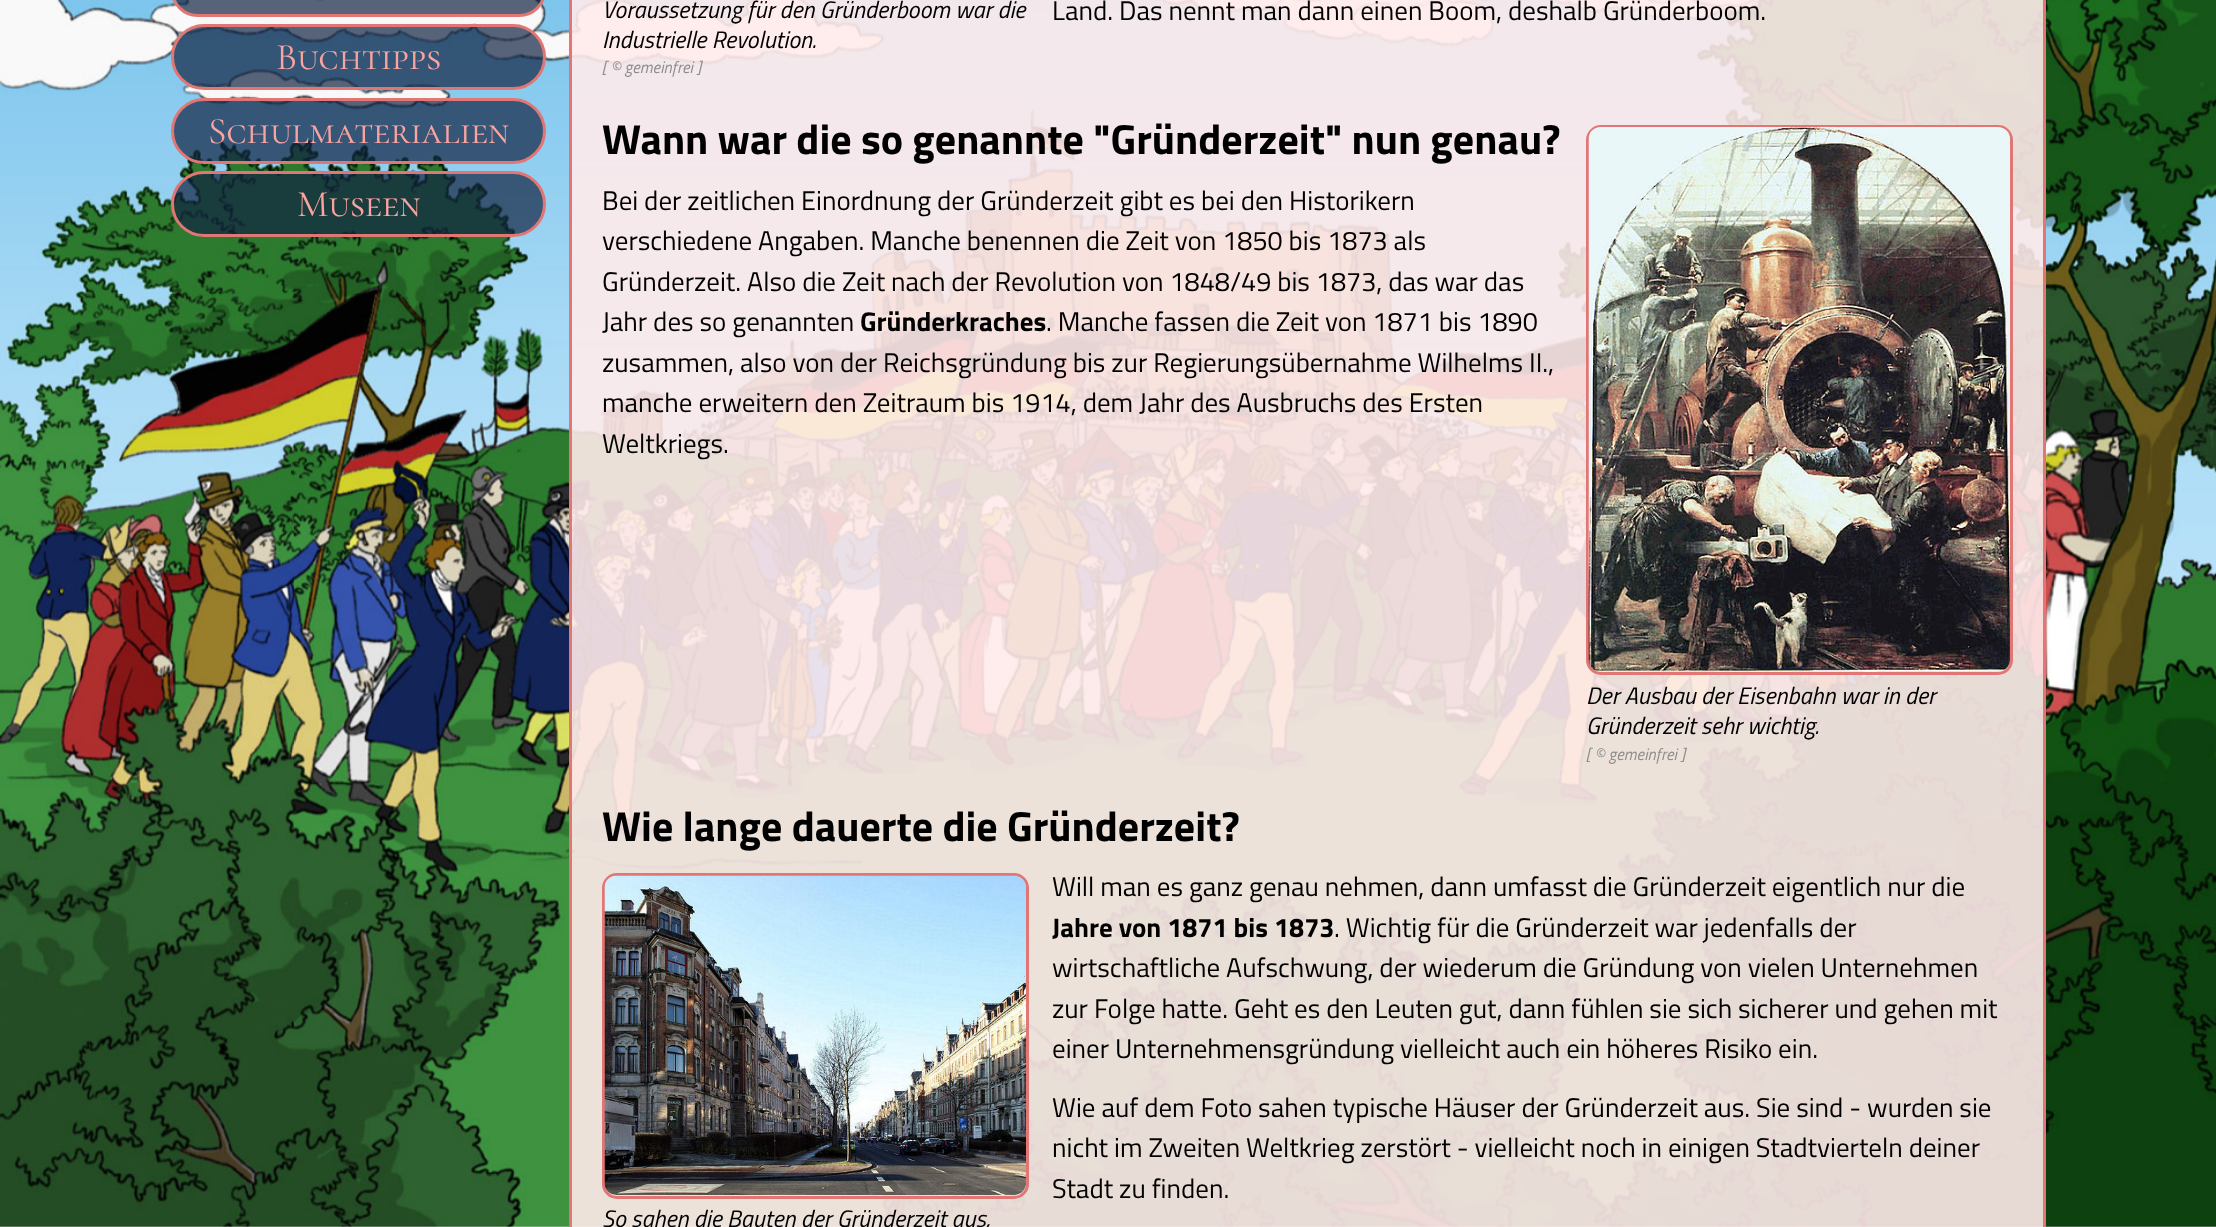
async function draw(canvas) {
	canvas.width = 2216;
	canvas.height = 1227;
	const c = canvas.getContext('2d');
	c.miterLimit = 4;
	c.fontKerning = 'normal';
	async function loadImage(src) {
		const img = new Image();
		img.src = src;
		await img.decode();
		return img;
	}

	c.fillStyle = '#fff';
	c.fillRect(0, 0, 2216, 1227);
	c.drawImage(await loadImage('img1.png'), 0, 0, 2216, 1227);
	c.fillStyle = '#112443b3';
	c.beginPath();
	c.roundRect(172.5, -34.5, 372, 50, 31.5);
	c.fill();
	c.strokeStyle = '#e17674';
	c.lineWidth = 3;
	c.stroke();
	c.beginPath();
	c.roundRect(172.5, 25.5, 372, 63, 31.5);
	c.fill();
	c.stroke();
	c.font = '37.5px Cormorant SC';
	c.fillStyle = '#faa3a1';
	c.fillText('Buchtipps', 276, 69);
	c.fillStyle = '#112443b3';
	c.beginPath();
	c.roundRect(172.5, 99.5, 372, 63, 31.5);
	c.fill();
	c.stroke();
	c.fillStyle = '#faa3a1';
	c.fillText('Schulmaterialien', 208, 143);
	c.fillStyle = '#112443b3';
	c.beginPath();
	c.roundRect(172.5, 172.5, 372, 63, 31.5);
	c.fill();
	c.stroke();
	c.fillStyle = '#faa3a1';
	c.fillText('Museen', 297, 216);
	c.fillStyle = '#ffebebe6';
	c.beginPath();
	c.rect(570.5, -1.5, 1474, 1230);
	c.fill();
	c.stroke();
	c.font = 'italic 24px Titillium Web';
	c.fillStyle = '#000';
	c.fillText('Voraussetzung für den Gründerboom war die', 602, 18);
	c.fillText('Industrielle Revolution.', 602, 48);
	c.font = 'italic 16.5px Titillium Web';
	c.fillStyle = '#8d8d8d';
	c.fillText('[ © gemeinfrei ]', 602, 73);
	c.font = '27px Titillium Web';
	c.fillStyle = '#000';
	c.fillText('Land. Das nennt man dann einen Boom, deshalb Gründerboom.', 1052, 20);
	c.font = 'bold 42px Titillium Web';
	c.fillText('Wann war die so genannte "Gründerzeit" nun genau?', 602, 154);
	c.font = '27px Titillium Web';
	for (const [text, x, y] of [
		['Bei der zeitlichen Einordnung der Gründerzeit gibt es bei den Historikern', 602, 210],
		['verschiedene Angaben. Manche benennen die Zeit von 1850 bis 1873 als', 602, 250],
		['Gründerzeit. Also die Zeit nach der Revolution von 1848/49 bis 1873, das war das', 602, 291],
		['Jahr des so genannten', 602, 331],
	]) {
		c.fillText(text, x, y);
	}
	c.font = 'bold 27px Titillium Web';
	c.fillText('Gründerkraches', 860, 331);
	c.font = '27px Titillium Web';
	for (const [text, x, y] of [
		['. Manche fassen die Zeit von 1871 bis 1890', 1046, 331],
		['zusammen, also von der Reichsgründung bis zur Regierungsübernahme Wilhelms II.,', 602, 372],
		['manche erweitern den Zeitraum bis 1914, dem Jahr des Ausbruchs des Ersten', 602, 412],
		['Weltkriegs.', 602, 453],
	]) {
		c.fillText(text, x, y);
	}
	c.beginPath();
	c.roundRect(1587.5, 126.5, 424, 547, 13.5);
	c.stroke();
	c.drawImage(await loadImage('img2.png'), 1588, 127, 422, 545);
	c.font = 'italic 24px Titillium Web';
	c.fillText('Der Ausbau der Eisenbahn war in der', 1586, 704);
	c.fillText('Gründerzeit sehr wichtig.', 1586, 734);
	c.font = 'italic 16.5px Titillium Web';
	c.fillStyle = '#8d8d8d';
	c.fillText('[ © gemeinfrei ]', 1586, 760);
	c.font = 'bold 42px Titillium Web';
	c.fillStyle = '#000';
	c.fillText('Wie lange dauerte die Gründerzeit?', 602, 841);
	c.font = '27px Titillium Web';
	c.fillText('Will man es ganz genau nehmen, dann umfasst die Gründerzeit eigentlich nur die', 1052, 896);
	c.font = 'bold 27px Titillium Web';
	c.fillText('Jahre von 1871 bis 1873', 1052, 937);
	c.font = '27px Titillium Web';
	for (const [text, x, y] of [
		['. Wichtig für die Gründerzeit war jedenfalls der', 1334, 937],
		['wirtschaftliche Aufschwung, der wiederum die Gründung von vielen Unternehmen', 1052, 977],
		['zur Folge hatte. Geht es den Leuten gut, dann fühlen sie sich sicherer und gehen mit', 1052, 1018],
		['einer Unternehmensgründung vielleicht auch ein höheres Risiko ein.', 1052, 1058],
		['Wie auf dem Foto sahen typische Häuser der Gründerzeit aus. Sie sind - wurden sie', 1052, 1117],
		['nicht im Zweiten Weltkrieg zerstört - vielleicht noch in einigen Stadtvierteln deiner', 1052, 1157],
		['Stadt zu finden.', 1052, 1198],
	]) {
		c.fillText(text, x, y);
	}
	c.beginPath();
	c.roundRect(603.5, 874.5, 424, 323, 13.5);
	c.stroke();
	c.drawImage(await loadImage('img3.png'), 604, 875, 422, 320);
	c.font = 'italic 24px Titillium Web';
	c.fillText('So sahen die Bauten der Gründerzeit aus,', 602, 1227);
}

draw(document.querySelector('canvas'));
